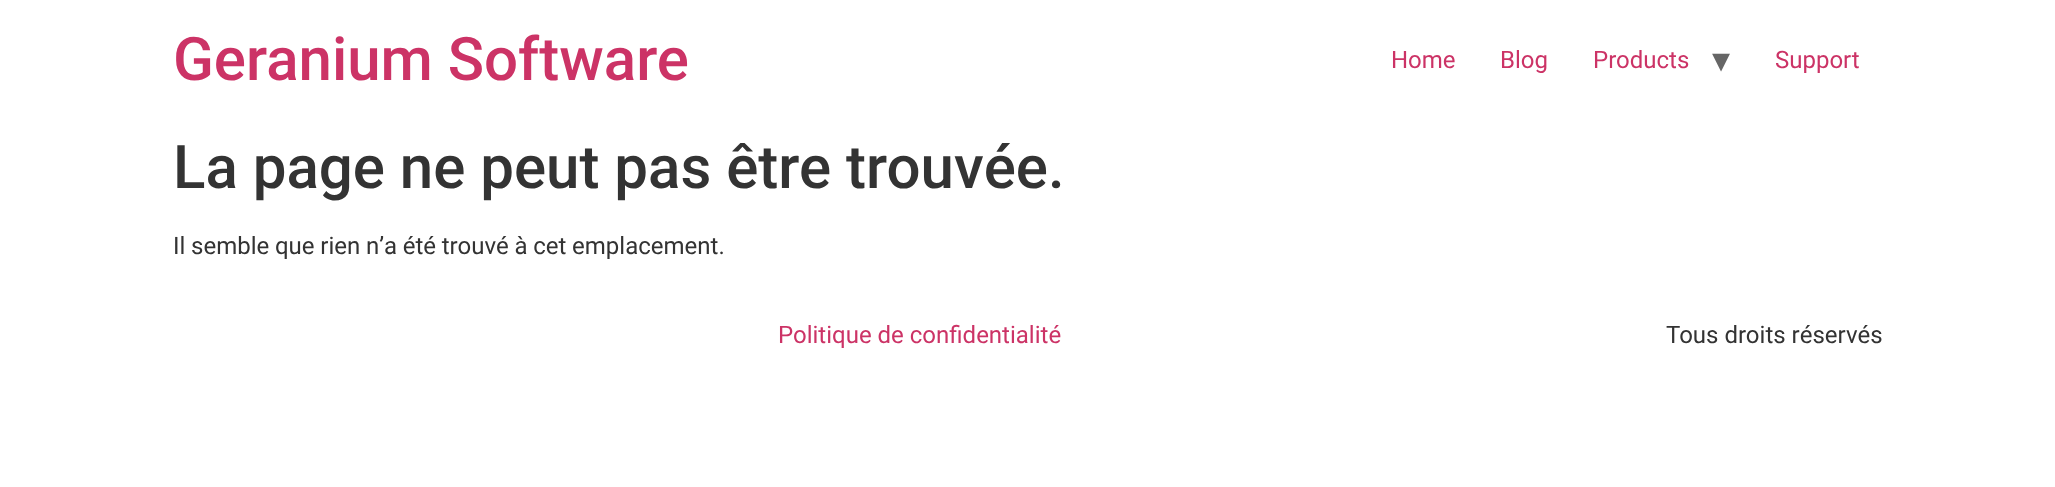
async function draw(canvas) {
	canvas.width = 2055;
	canvas.height = 487;
	const c = canvas.getContext('2d');
	c.miterLimit = 4;
	c.fontKerning = 'normal';

	c.fillStyle = '#fff';
	c.fillRect(0, 0, 2055, 487);
	c.font = '500 60px Roboto';
	c.fillStyle = '#c36';
	c.fillText('Geranium Software', 173, 80);
	c.font = '24px Roboto';
	for (const [text, x, y] of [
		['Home', 1391, 68],
		['Blog', 1500, 68],
		['Products', 1593, 68],
	]) {
		c.fillText(text, x, y);
	}
	c.font = '36px DejaVu Sans';
	c.fillStyle = '#666';
	c.fillText('▾', 1712, 72);
	c.font = '24px Roboto';
	c.fillStyle = '#c36';
	c.fillText('Support', 1775, 68);
	c.font = '500 60px Roboto';
	c.fillStyle = '#333';
	c.fillText('La page ne peut pas être trouvée.', 173, 188);
	c.wordSpacing = '-0.25px';
	c.font = '24px Roboto';
	c.fillText('Il semble que rien n’a été trouvé à cet emplacement.', 173, 254);
	c.wordSpacing = '0px';
	c.fillStyle = '#c36';
	c.fillText('Politique de confidentialité', 778, 343);
	c.fillStyle = '#333';
	c.fillText('Tous droits réservés', 1666, 343);
}

draw(document.querySelector('canvas'));
